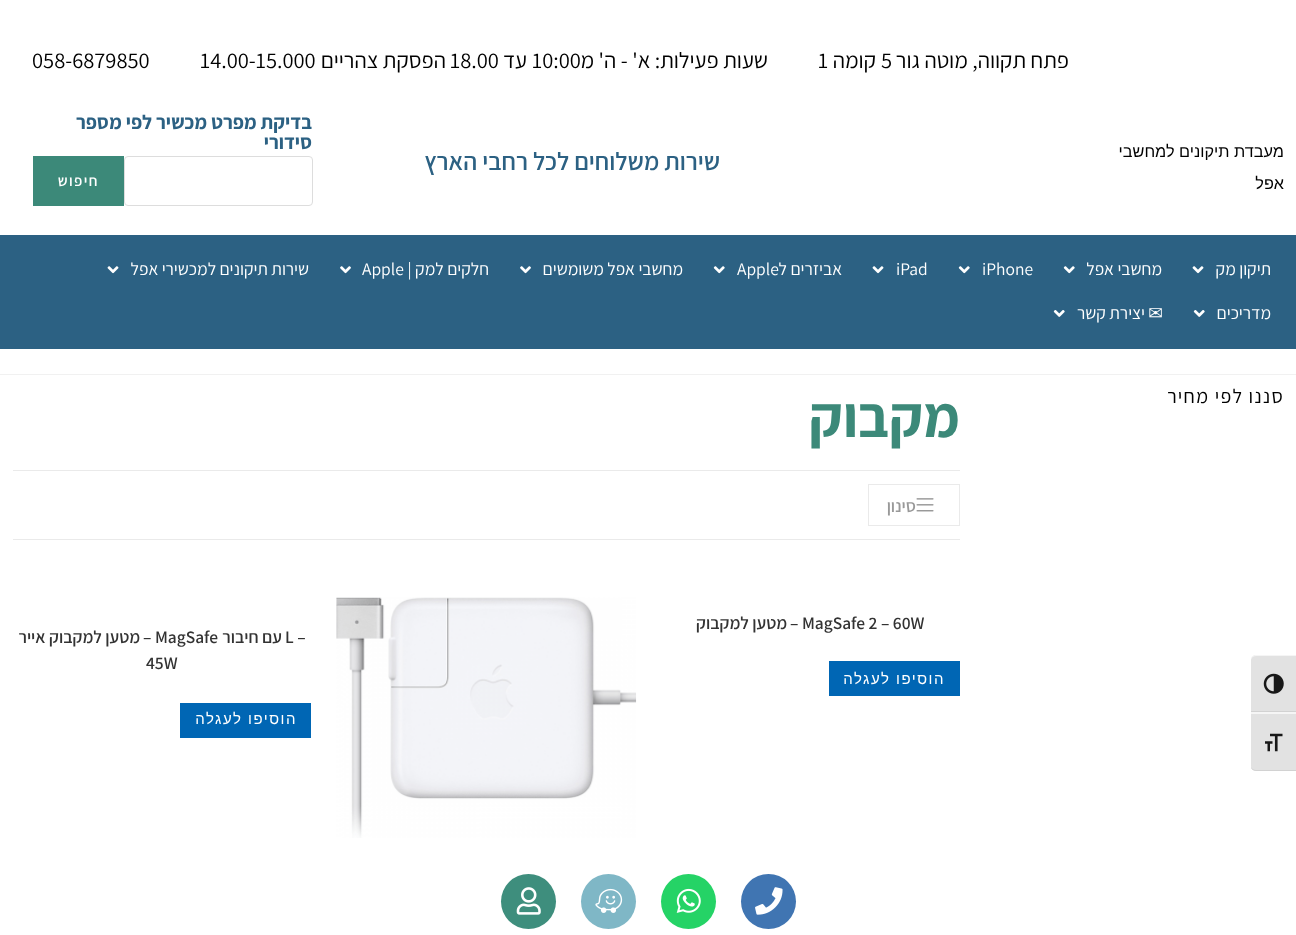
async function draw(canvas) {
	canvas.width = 1296;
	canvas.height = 935;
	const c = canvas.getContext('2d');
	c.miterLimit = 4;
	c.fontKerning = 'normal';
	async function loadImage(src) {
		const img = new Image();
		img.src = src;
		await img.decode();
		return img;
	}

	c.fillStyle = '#fff';
	c.fillRect(0, 0, 1296, 935);
	c.fillStyle = '#f1f1f1';
	c.fillRect(0, 374, 1296, 1);
	c.direction = 'rtl';
	c.font = '16.25px Liberation Sans';
	c.fillStyle = '#000';
	c.fillText('מעבדת תיקונים למחשבי', 1284, 157);
	c.fillText('אפל', 1284, 189);
	c.font = '22.5px Assistant';
	c.fillText('פתח תקווה, מוטה גור', 1069, 68);
	c.direction = 'ltr';
	c.fillText('5', 881, 68);
	c.direction = 'rtl';
	c.fillText('קומה', 876, 68);
	c.direction = 'ltr';
	c.fillText('1', 818, 68);
	c.direction = 'rtl';
	c.fillText('שעות פעילות: א\' - ה\' מ', 768, 68);
	c.direction = 'ltr';
	c.fillText('10:00', 532, 68);
	c.direction = 'rtl';
	c.fillText('עד', 527, 68);
	c.direction = 'ltr';
	c.fillText('18.00', 450, 68);
	c.direction = 'rtl';
	c.fillText('הפסקת צהריים', 446, 68);
	c.direction = 'ltr';
	c.fillText('14.00-15.000', 200, 68);
	c.fillText('058-6879850', 32, 68);
	c.direction = 'rtl';
	c.font = '600 25px Assistant';
	c.fillStyle = '#2c6183';
	c.fillText('שירות משלוחים לכל רחבי הארץ', 720, 170);
	c.font = 'bold 20px Assistant';
	c.fillText('בדיקת מפרט מכשיר לפי מספר', 312, 129);
	c.fillText('סידורי', 312, 149);
	c.beginPath();
	c.roundRect(124.5, 156.5, 188, 49, 3.5);
	c.strokeStyle = '#ddd';
	c.stroke();
	c.fillStyle = '#3c8979';
	c.fillRect(33, 156, 91, 50);
	c.letterSpacing = '1.5px';
	c.font = '600 15px Assistant';
	c.fillStyle = '#fff';
	c.fillText('חיפוש', 99, 186);
	c.fillStyle = '#2c6183';
	c.fillRect(0, 235, 1296, 114);
	c.letterSpacing = '0px';
	c.font = '17.5px Assistant';
	c.fillStyle = '#fff';
	c.fillText('תיקון מק', 1271, 275);
	c.drawImage(await loadImage('img1.png'), 1192, 266, 12, 8);
	c.fillText('מחשבי אפל', 1162, 275);
	c.drawImage(await loadImage('img2.png'), 1063, 266, 12, 8);
	c.direction = 'ltr';
	c.fillText('iPhone', 982, 275);
	c.drawImage(await loadImage('img2.png'), 958, 266, 12, 8);
	c.fillText('iPad', 896, 275);
	c.drawImage(await loadImage('img1.png'), 872, 266, 12, 8);
	c.direction = 'rtl';
	c.fillText('אביזרים ל', 842, 275);
	c.direction = 'ltr';
	c.fillText('Apple', 737, 275);
	c.drawImage(await loadImage('img2.png'), 713, 266, 12, 8);
	c.direction = 'rtl';
	c.fillText('מחשבי אפל משומשים', 683, 275);
	c.drawImage(await loadImage('img3.png'), 520, 266, 11, 8);
	c.fillText('חלקים למק |', 489, 275);
	c.direction = 'ltr';
	c.fillText('Apple', 362, 275);
	c.drawImage(await loadImage('img3.png'), 340, 266, 11, 8);
	c.direction = 'rtl';
	c.fillText('שירות תיקונים למכשירי אפל', 309, 275);
	c.drawImage(await loadImage('img1.png'), 107, 266, 12, 8);
	c.fillText('מדריכים', 1271, 319);
	c.drawImage(await loadImage('img4.png'), 1193, 310, 12, 7);
	c.font = '17.5px DejaVu Sans';
	c.fillText('✉', 1163, 319);
	c.font = '17.5px Assistant';
	c.fillText('יצירת קשר', 1145, 319);
	c.drawImage(await loadImage('img4.png'), 1053, 310, 12, 7);
	c.fillStyle = '#4075b2';
	c.beginPath();
	c.arc(768.5, 901.5, 27.5, 0, 2 * Math.PI);
	c.fill();
	c.drawImage(await loadImage('img5.png'), 755, 887, 28, 28);
	c.fillStyle = '#25d366';
	c.beginPath();
	c.arc(688.5, 901.5, 27.5, 0, 2 * Math.PI);
	c.fill();
	c.drawImage(await loadImage('img6.png'), 676, 888, 25, 25);
	c.fillStyle = '#7fb7c6';
	c.beginPath();
	c.arc(608.5, 901.5, 27.5, 0, 2 * Math.PI);
	c.fill();
	c.drawImage(await loadImage('img7.png'), 595, 888, 28, 25);
	c.fillStyle = '#3e8e7d';
	c.beginPath();
	c.arc(528.5, 901.5, 27.5, 0, 2 * Math.PI);
	c.fill();
	c.drawImage(await loadImage('img8.png'), 516, 887, 25, 28);
	c.letterSpacing = '1.25px';
	c.font = '20px Assistant';
	c.fillStyle = '#000';
	c.fillText('סננו לפי מחיר', 1284, 403);
	c.letterSpacing = '0px';
	c.font = 'bold 57.5px Assistant';
	c.fillStyle = '#3c8979';
	c.fillText('מקבוק', 960, 437);
	c.fillStyle = '#eaeaea';
	c.fillRect(13, 470, 947, 1);
	c.fillRect(13, 539, 947, 1);
	c.strokeStyle = '#eaeaea';
	c.strokeRect(868.5, 484.5, 91, 41);
	c.drawImage(await loadImage('img9.png'), 916, 498, 18, 14);
	c.font = '600 17.5px Assistant';
	c.fillStyle = '#999';
	c.fillText('סינון', 916, 512);
	c.direction = 'ltr';
	c.fillStyle = '#333';
	c.fillText('– MagSafe 2 – 60W', 790, 629);
	c.direction = 'rtl';
	c.fillText('מטען למקבוק', 787, 629);
	c.fillStyle = '#0066b4';
	c.fillRect(829, 661, 131, 35);
	c.letterSpacing = '1.5px';
	c.font = '15px Liberation Sans';
	c.fillStyle = '#fff';
	c.fillText('הוסיפו לעגלה', 945, 684);
	c.drawImage(await loadImage('img10.png'), 336, 597, 301, 241);
	c.letterSpacing = '0px';
	c.direction = 'ltr';
	c.font = '600 17.5px Assistant';
	c.fillStyle = '#333';
	c.fillText('L –', 285, 643);
	c.direction = 'rtl';
	c.fillText('עם חיבור', 282, 643);
	c.direction = 'ltr';
	c.fillText('– MagSafe', 143, 643);
	c.direction = 'rtl';
	c.fillText('מטען למקבוק אייר', 140, 643);
	c.direction = 'ltr';
	c.fillText('45W', 146, 669);
	c.fillStyle = '#0066b4';
	c.fillRect(180, 703, 131, 35);
	c.letterSpacing = '1.5px';
	c.direction = 'rtl';
	c.font = '15px Liberation Sans';
	c.fillStyle = '#fff';
	c.fillText('הוסיפו לעגלה', 297, 724);
	c.fillStyle = '#e2e2e2';
	c.beginPath();
	c.roundRect(1251, 655, 45, 58, [5, 0, 0, 0]);
	c.fill();
	c.fillStyle = '#f5f5f5';
	c.beginPath();
	c.moveTo(1256, 655);
	c.bezierCurveTo(1254, 655, 1251, 656, 1251, 659);
	c.bezierCurveTo(1252, 657, 1254, 656, 1256, 656);
	c.lineTo(1296, 656);
	c.lineTo(1296, 655);
	c.closePath();
	c.fill();
	c.fillStyle = '#d2d2d2';
	c.fillRect(1251, 711, 45, 1);
	c.drawImage(await loadImage('img11.png'), 1263, 673, 21, 21);
	c.fillStyle = '#e2e2e2';
	c.beginPath();
	c.roundRect(1251, 713, 45, 58, [0, 0, 0, 5]);
	c.fill();
	c.fillStyle = '#f5f5f5';
	c.fillRect(1251, 712, 45, 2);
	c.fillStyle = '#d2d2d2';
	c.beginPath();
	c.moveTo(1296, 771);
	c.lineTo(1296, 770);
	c.lineTo(1256, 770);
	c.bezierCurveTo(1254, 770, 1252, 769, 1251, 767);
	c.lineTo(1251, 768);
	c.bezierCurveTo(1252, 770, 1254, 771, 1256, 771);
	c.closePath();
	c.fill();
	c.drawImage(await loadImage('img12.png'), 1265, 733, 18, 19);
}

draw(document.querySelector('canvas'));
